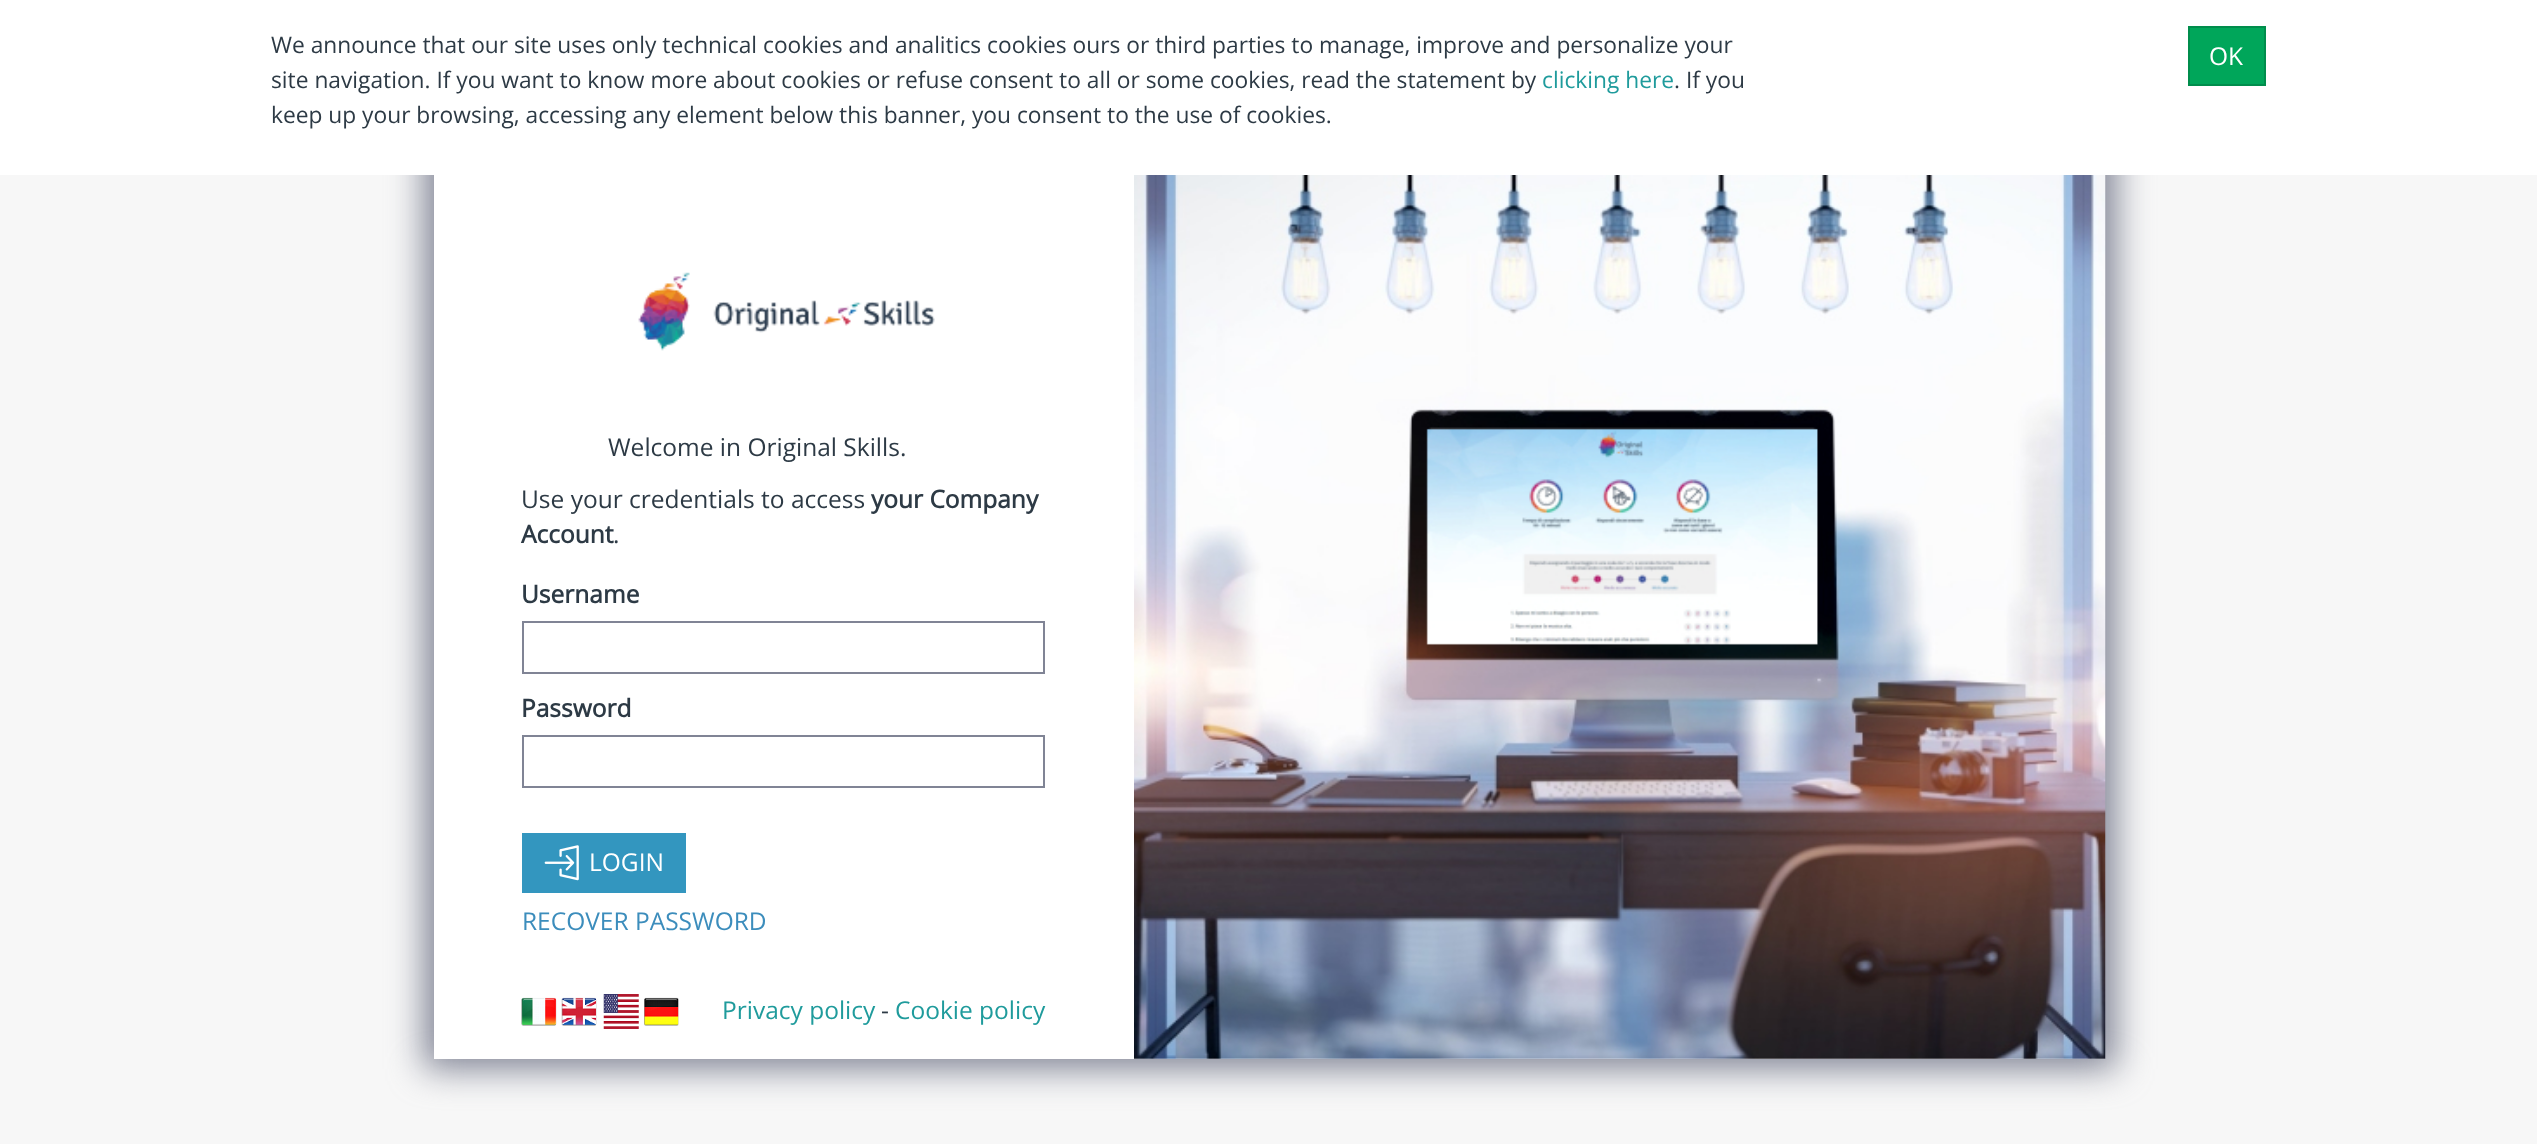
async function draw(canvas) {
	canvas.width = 2537;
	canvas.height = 1144;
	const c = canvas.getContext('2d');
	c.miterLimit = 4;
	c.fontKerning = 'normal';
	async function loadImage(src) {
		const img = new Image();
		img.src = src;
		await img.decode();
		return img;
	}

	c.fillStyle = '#f7f7f7';
	c.fillRect(0, 0, 2537, 1144);
	c.fillStyle = '#808495';
	c.filter = 'blur(17.5px)';
	c.beginPath();
	c.rect(424, 77, 1692, 992);
	c.fill();
	c.filter = 'none';
	c.fillStyle = '#fff';
	c.fillRect(0, 0, 2537, 175);
	c.font = '22.75px Open Sans';
	c.fillStyle = '#2d3a45';
	c.fillText('We announce that our site uses only technical cookies and analitics cookies ours or third parties to manage, improve and personalize your', 271, 53);
	c.fillText('site navigation. If you want to know more about cookies or refuse consent to all or some cookies, read the statement by', 271, 88);
	c.fillStyle = '#1f9b9c';
	c.fillText('clicking here', 1542, 88);
	c.fillStyle = '#2d3a45';
	c.fillText('. If you', 1674, 88);
	c.fillText('keep up your browsing, accessing any element below this banner, you consent to the use of cookies.', 271, 123);
	c.fillStyle = '#00a65a';
	c.beginPath();
	c.rect(2189, 27, 76, 58);
	c.fill();
	c.strokeStyle = '#008d4c';
	c.lineWidth = 2;
	c.stroke();
	c.font = '24.5px Open Sans';
	c.fillStyle = '#fff';
	c.fillText('OK', 2209, 65);
	c.fillRect(434, 175, 1671, 884);
	c.drawImage(await loadImage('img1.png'), 638, 272, 297, 79);
	c.fillStyle = '#2d3a45';
	c.fillText('Welcome in Original Skills.', 608, 456);
	c.fillText('Use your credentials to access', 521, 508);
	c.font = 'bold 24.5px Open Sans';
	c.fillText('your Company', 871, 508);
	c.fillText('Account', 521, 543);
	c.font = '24.5px Open Sans';
	c.fillText('.', 613, 543);
	c.font = 'bold 24.5px Open Sans';
	c.fillText('Username', 521, 603);
	c.strokeStyle = '#808495';
	c.strokeRect(523, 622, 521, 51);
	c.fillText('Password', 521, 717);
	c.strokeRect(523, 736, 521, 51);
	c.fillStyle = '#3396bf';
	c.beginPath();
	c.rect(523, 834, 162, 58);
	c.fill();
	c.strokeStyle = '#3396bf';
	c.stroke();
	c.drawImage(await loadImage('img2.png'), 544, 845, 35, 36);
	c.font = '24.5px Open Sans';
	c.fillStyle = '#fff';
	c.fillText('LOGIN', 589, 871);
	c.fillStyle = '#3c8dbc';
	c.fillText('RECOVER PASSWORD', 522, 930);
	c.drawImage(await loadImage('img3.png'), 521, 997, 36, 29);
	c.drawImage(await loadImage('img4.png'), 561, 997, 36, 29);
	c.drawImage(await loadImage('img5.png'), 603, 994, 36, 35);
	c.drawImage(await loadImage('img6.png'), 644, 997, 35, 29);
	c.fillStyle = '#1f9b9c';
	c.fillText('Privacy policy', 722, 1019);
	c.fillStyle = '#2d3a45';
	c.fillText('-', 881, 1019);
	c.fillStyle = '#1f9b9c';
	c.fillText('Cookie policy', 895, 1019);
	c.drawImage(await loadImage('img7.png'), 1134, 175, 972, 884);
}

draw(document.querySelector('canvas'));
